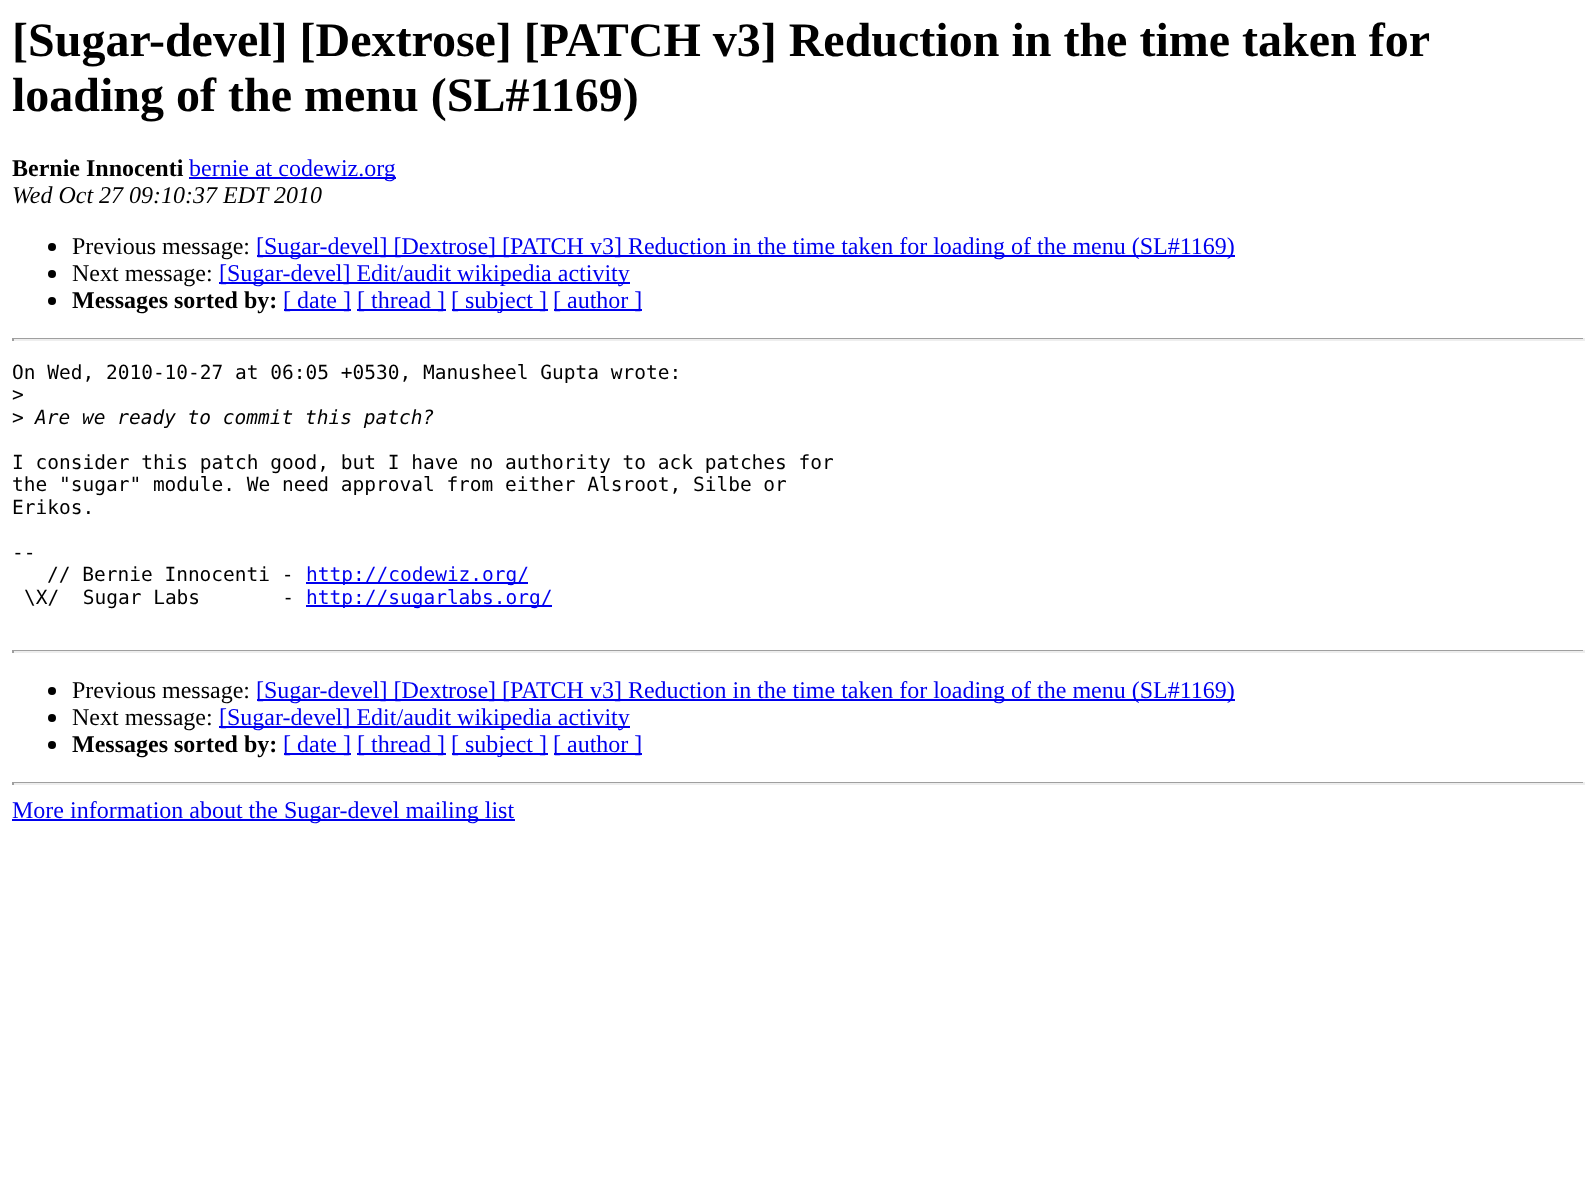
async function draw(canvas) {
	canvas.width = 1596;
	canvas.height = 1179;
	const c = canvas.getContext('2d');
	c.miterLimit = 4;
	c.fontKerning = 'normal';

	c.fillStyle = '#fff';
	c.fillRect(0, 0, 1596, 1179);
	c.font = 'bold 48px Liberation Serif';
	c.fillStyle = '#000';
	c.fillText('[Sugar-devel] [Dextrose] [PATCH v3] Reduction in the time taken for', 12, 56);
	c.fillText('loading of the menu (SL#1169)', 12, 111);
	c.font = 'bold 24px Liberation Serif';
	c.fillText('Bernie Innocenti', 12, 176);
	c.fillStyle = '#00e';
	c.fillRect(189, 177, 207, 2);
	c.font = '24px Liberation Serif';
	c.fillText('bernie at codewiz.org', 189, 176);
	c.font = 'italic 24px Liberation Serif';
	c.fillStyle = '#000';
	c.fillText('Wed Oct 27 09:10:37 EDT 2010', 12, 203);
	c.beginPath();
	c.arc(52, 247, 4, 0, 2 * Math.PI);
	c.fill();
	c.font = '24px Liberation Serif';
	c.fillText('Previous message:', 72, 254);
	c.fillStyle = '#00e';
	c.fillRect(257, 255, 978, 2);
	c.fillText('[Sugar-devel] [Dextrose] [PATCH v3] Reduction in the time taken for loading of the menu (SL#1169)', 256, 254);
	c.fillStyle = '#000';
	c.beginPath();
	c.arc(52, 274, 4, 0, 2 * Math.PI);
	c.fill();
	c.fillText('Next message:', 72, 281);
	c.fillStyle = '#00e';
	c.fillRect(219, 282, 411, 2);
	c.fillText('[Sugar-devel] Edit/audit wikipedia activity', 219, 281);
	c.fillStyle = '#000';
	c.beginPath();
	c.arc(52, 301, 4, 0, 2 * Math.PI);
	c.fill();
	c.font = 'bold 24px Liberation Serif';
	c.fillText('Messages sorted by:', 72, 308);
	c.fillStyle = '#00e';
	c.fillRect(284, 309, 67, 2);
	c.font = '24px Liberation Serif';
	c.fillText('[ date ]', 283, 308);
	c.fillRect(357, 309, 89, 2);
	c.fillText('[ thread ]', 357, 308);
	c.fillRect(452, 309, 96, 2);
	c.fillText('[ subject ]', 451, 308);
	c.fillRect(554, 309, 88, 2);
	c.fillText('[ author ]', 553, 308);
	for (const [x, y, w, h, color] of [
		[12, 338, 1572, 1, '#9f9f9f'],
		[1583, 338, 2, 3, '#eee'],
		[12, 339, 1572, 2, '#eee'],
		[12, 338, 2, 3, '#9f9f9f'],
	]) {
		c.fillStyle = color;
		c.fillRect(x, y, w, h);
	}
	c.font = '19.5px DejaVu Sans Mono';
	c.fillStyle = '#000';
	for (const [text, x, y] of [
		['On Wed, 2010-10-27 at 06:05 +0530, Manusheel Gupta wrote:', 12, 379],
		['>', 12, 401],
		['>', 12, 424],
	]) {
		c.fillText(text, x, y);
	}
	c.font = 'italic 19.5px DejaVu Sans Mono';
	c.fillText('Are we ready to commit this patch?', 35, 424);
	c.font = '19.5px DejaVu Sans Mono';
	for (const [text, x, y] of [
		['I consider this patch good, but I have no authority to ack patches for', 12, 469],
		['the "sugar" module. We need approval from either Alsroot, Silbe or', 12, 491],
		['Erikos.', 12, 514],
		['--', 12, 559],
		['// Bernie Innocenti -', 47, 581],
	]) {
		c.fillText(text, x, y);
	}
	c.fillStyle = '#00e';
	c.fillRect(306, 582, 222, 2);
	c.fillText('http://codewiz.org/', 306, 581);
	c.fillStyle = '#000';
	c.fillText('\\X/  Sugar Labs       -', 24, 604);
	c.fillStyle = '#00e';
	c.fillRect(306, 605, 246, 2);
	c.fillText('http://sugarlabs.org/', 306, 604);
	for (const [x, y, w, h, color] of [
		[12, 650, 1572, 1, '#9f9f9f'],
		[1583, 650, 2, 3, '#eee'],
		[12, 651, 1572, 2, '#eee'],
		[12, 650, 2, 3, '#9f9f9f'],
	]) {
		c.fillStyle = color;
		c.fillRect(x, y, w, h);
	}
	c.fillStyle = '#000';
	c.beginPath();
	c.arc(52, 691, 4, 0, 2 * Math.PI);
	c.fill();
	c.font = '24px Liberation Serif';
	c.fillText('Previous message:', 72, 698);
	c.fillStyle = '#00e';
	c.fillRect(257, 699, 978, 2);
	c.fillText('[Sugar-devel] [Dextrose] [PATCH v3] Reduction in the time taken for loading of the menu (SL#1169)', 256, 698);
	c.fillStyle = '#000';
	c.beginPath();
	c.arc(52, 718, 4, 0, 2 * Math.PI);
	c.fill();
	c.fillText('Next message:', 72, 725);
	c.fillStyle = '#00e';
	c.fillRect(219, 726, 411, 2);
	c.fillText('[Sugar-devel] Edit/audit wikipedia activity', 219, 725);
	c.fillStyle = '#000';
	c.beginPath();
	c.arc(52, 745, 4, 0, 2 * Math.PI);
	c.fill();
	c.font = 'bold 24px Liberation Serif';
	c.fillText('Messages sorted by:', 72, 752);
	c.fillStyle = '#00e';
	c.fillRect(284, 753, 67, 2);
	c.font = '24px Liberation Serif';
	c.fillText('[ date ]', 283, 752);
	c.fillRect(357, 753, 89, 2);
	c.fillText('[ thread ]', 357, 752);
	c.fillRect(452, 753, 96, 2);
	c.fillText('[ subject ]', 451, 752);
	c.fillRect(554, 753, 88, 2);
	c.fillText('[ author ]', 553, 752);
	for (const [x, y, w, h, color] of [
		[12, 782, 1572, 1, '#9f9f9f'],
		[1583, 782, 2, 3, '#eee'],
		[12, 783, 1572, 2, '#eee'],
		[12, 782, 2, 3, '#9f9f9f'],
		[12, 819, 503, 2, '#00e'],
	]) {
		c.fillStyle = color;
		c.fillRect(x, y, w, h);
	}
	c.fillText('More information about the Sugar-devel mailing list', 12, 818);
}

draw(document.querySelector('canvas'));
